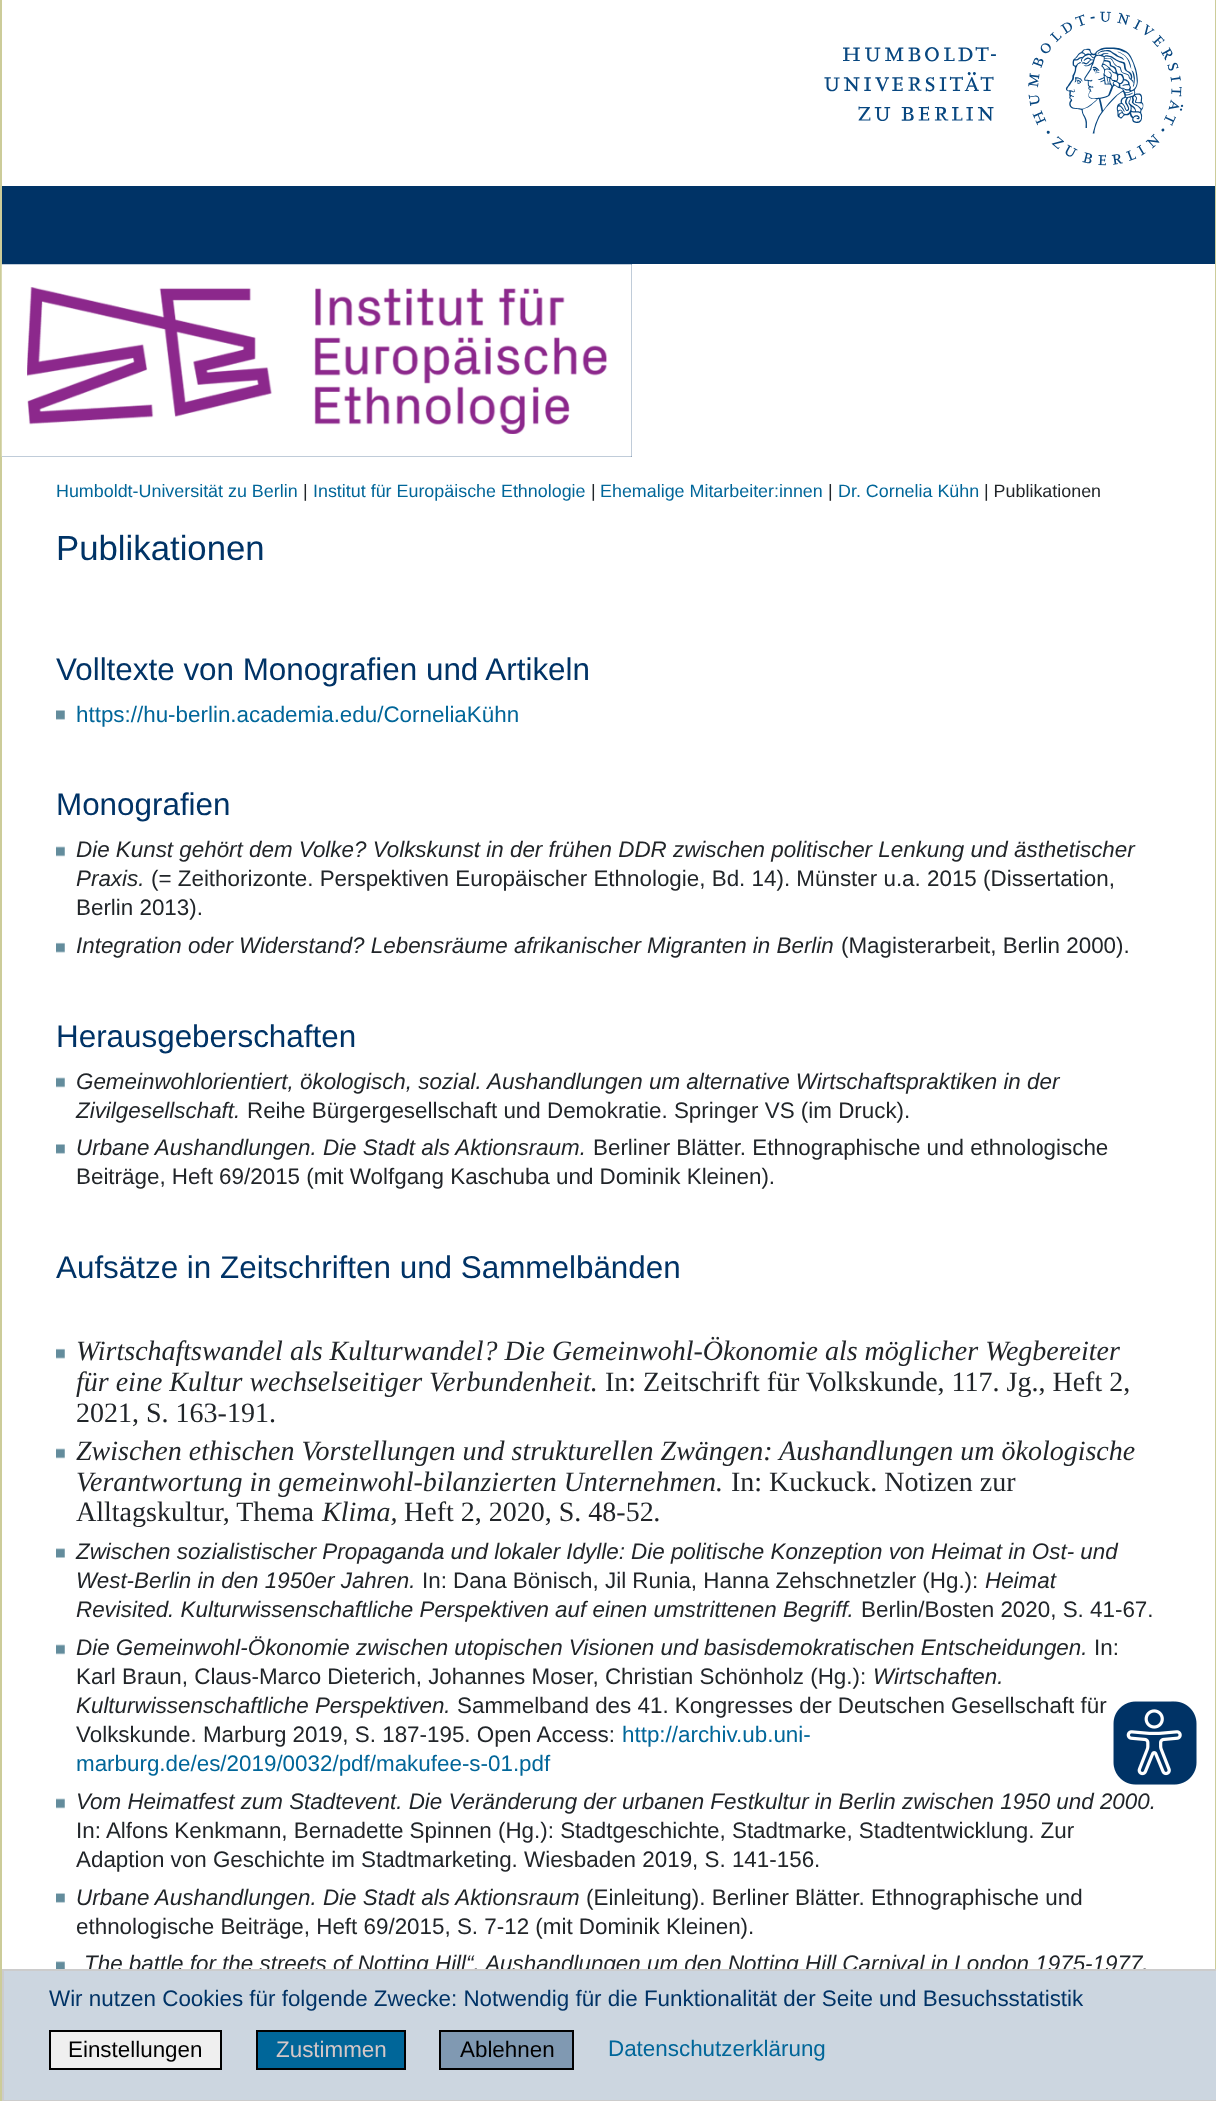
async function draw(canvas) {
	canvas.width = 1216;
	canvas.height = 2101;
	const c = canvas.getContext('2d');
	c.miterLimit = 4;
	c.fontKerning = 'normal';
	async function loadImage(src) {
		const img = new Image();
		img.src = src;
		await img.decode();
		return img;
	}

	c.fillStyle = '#fff';
	c.fillRect(0, 0, 1216, 2101);
	c.drawImage(await loadImage('img1.png'), 824, 11, 360, 155);
	for (const [x, y, w, h, color] of [
		[2, 186, 1213, 78, '#036'],
		[2, 264, 630, 193, '#036'],
		[0, 0, 2, 2101, '#cc9'],
	]) {
		c.fillStyle = color;
		c.fillRect(x, y, w, h);
	}
	c.drawImage(await loadImage('img2.png'), 1, 264, 631, 193);
	c.fillRect(1215, 0, 1, 1969);
	c.font = '17.9px Liberation Sans';
	c.fillStyle = '#069';
	c.fillText('Humboldt-Universität zu Berlin', 56, 497);
	c.fillStyle = '#212529';
	c.fillText('|', 303, 497);
	c.fillStyle = '#069';
	c.fillText('Institut für Europäische Ethnologie', 313, 497);
	c.fillStyle = '#212529';
	c.fillText('|', 591, 497);
	c.fillStyle = '#069';
	c.fillText('Ehemalige Mitarbeiter:innen', 600, 497);
	c.fillStyle = '#212529';
	c.fillText('|', 828, 497);
	c.fillStyle = '#069';
	c.fillText('Dr. Cornelia Kühn', 838, 497);
	c.fillStyle = '#212529';
	c.fillText('| Publikationen', 984, 497);
	c.font = '34.75px Liberation Sans';
	c.fillStyle = '#036';
	c.fillText('Publikationen', 56, 560);
	c.font = '31.4px Liberation Sans';
	c.fillText('Volltexte von Monografien und Artikeln', 56, 680);
	c.drawImage(await loadImage('img3.png'), 56, 710, 9, 10);
	c.font = '22.4px Liberation Sans';
	c.fillStyle = '#069';
	c.fillText('https://hu-berlin.academia.edu/CorneliaKühn', 76, 722);
	c.font = '31.4px Liberation Sans';
	c.fillStyle = '#036';
	c.fillText('Monografien', 56, 815);
	c.drawImage(await loadImage('img4.png'), 56, 846, 9, 11);
	c.font = 'italic 22.4px Liberation Sans';
	c.fillStyle = '#212529';
	c.fillText('Die Kunst gehört dem Volke? Volkskunst in der frühen DDR zwischen politischer Lenkung und ästhetischer', 76, 857);
	c.fillText('Praxis.', 76, 886);
	c.font = '22.4px Liberation Sans';
	c.fillText('(= Zeithorizonte. Perspektiven Europäischer Ethnologie, Bd. 14). Münster u.a. 2015 (Dissertation,', 151, 886);
	c.fillText('Berlin 2013).', 76, 915);
	c.drawImage(await loadImage('img5.png'), 56, 942, 9, 11);
	c.font = 'italic 22.4px Liberation Sans';
	c.fillText('Integration oder Widerstand? Lebensräume afrikanischer Migranten in Berlin', 76, 953);
	c.font = '22.4px Liberation Sans';
	c.fillText('(Magisterarbeit, Berlin 2000).', 841, 953);
	c.font = '31.4px Liberation Sans';
	c.fillStyle = '#036';
	c.fillText('Herausgeberschaften', 56, 1047);
	c.drawImage(await loadImage('img4.png'), 56, 1077, 9, 11);
	c.font = 'italic 22.4px Liberation Sans';
	c.fillStyle = '#212529';
	c.fillText('Gemeinwohlorientiert, ökologisch, sozial. Aushandlungen um alternative Wirtschaftspraktiken in der', 76, 1089);
	c.fillText('Zivilgesellschaft.', 76, 1118);
	c.font = '22.4px Liberation Sans';
	c.fillText('Reihe Bürgergesellschaft und Demokratie. Springer VS (im Druck).', 247, 1118);
	c.drawImage(await loadImage('img3.png'), 56, 1144, 9, 10);
	c.font = 'italic 22.4px Liberation Sans';
	c.fillText('Urbane Aushandlungen. Die Stadt als Aktionsraum.', 76, 1155);
	c.font = '22.4px Liberation Sans';
	c.fillText('Berliner Blätter. Ethnographische und ethnologische', 593, 1155);
	c.fillText('Beiträge, Heft 69/2015 (mit Wolfgang Kaschuba und Dominik Kleinen).', 76, 1184);
	c.font = '31.4px Liberation Sans';
	c.fillStyle = '#036';
	c.fillText('Aufsätze in Zeitschriften und Sammelbänden', 56, 1278);
	c.drawImage(await loadImage('img5.png'), 56, 1348, 9, 11);
	c.font = 'italic 28px Liberation Serif';
	c.fillStyle = '#212529';
	c.fillText('Wirtschaftswandel als Kulturwandel? Die Gemeinwohl-Ökonomie als möglicher Wegbereiter', 76, 1360);
	c.fillText('für eine Kultur wechselseitiger Verbundenheit.', 76, 1391);
	c.font = '28px Liberation Serif';
	c.fillText('In: Zeitschrift für Volkskunde, 117. Jg., Heft 2,', 605, 1391);
	c.fillText('2021, S. 163-191.', 76, 1422);
	c.drawImage(await loadImage('img4.png'), 56, 1448, 9, 11);
	c.font = 'italic 28px Liberation Serif';
	c.fillText('Zwischen ethischen Vorstellungen und strukturellen Zwängen: Aushandlungen um ökologische', 76, 1460);
	c.fillText('Verantwortung in gemeinwohl-bilanzierten Unternehmen.', 76, 1491);
	c.font = '28px Liberation Serif';
	c.fillText('In: Kuckuck. Notizen zur', 731, 1491);
	c.fillText('Alltagskultur, Thema', 76, 1521);
	c.font = 'italic 28px Liberation Serif';
	c.fillText('Klima,', 322, 1521);
	c.font = '28px Liberation Serif';
	c.fillText('Heft 2, 2020, S. 48-52', 404, 1521);
	c.font = 'italic 28px Liberation Serif';
	c.fillText('.', 654, 1521);
	c.drawImage(await loadImage('img6.png'), 56, 1548, 9, 10);
	c.font = 'italic 22.4px Liberation Sans';
	c.fillText('Zwischen sozialistischer Propaganda und lokaler Idylle: Die politische Konzeption von Heimat in Ost- und', 76, 1559);
	c.fillText('West-Berlin in den 1950er Jahren.', 76, 1588);
	c.font = '22.4px Liberation Sans';
	c.fillText('In: Dana Bönisch, Jil Runia, Hanna Zehschnetzler (Hg.):', 422, 1588);
	c.font = 'italic 22.4px Liberation Sans';
	c.fillText('Heimat', 985, 1588);
	c.fillText('Revisited. Kulturwissenschaftliche Perspektiven auf einen umstrittenen Begriff.', 76, 1617);
	c.font = '22.4px Liberation Sans';
	c.fillText('Berlin/Bosten 2020, S. 41-67.', 861, 1617);
	c.drawImage(await loadImage('img4.png'), 56, 1644, 9, 11);
	c.font = 'italic 22.4px Liberation Sans';
	c.fillText('Die Gemeinwohl-Ökonomie zwischen utopischen Visionen und basisdemokratischen Entscheidungen.', 76, 1655);
	c.font = '22.4px Liberation Sans';
	c.fillText('In:', 1094, 1655);
	c.fillText('Karl Braun, Claus-Marco Dieterich, Johannes Moser, Christian Schönholz (Hg.):', 76, 1684);
	c.font = 'italic 22.4px Liberation Sans';
	c.fillText('Wirtschaften.', 873, 1684);
	c.fillText('Kulturwissenschaftliche Perspektiven.', 76, 1713);
	c.font = '22.4px Liberation Sans';
	c.fillText('Sammelband des 41. Kongresses der Deutschen Gesellschaft für', 457, 1713);
	c.fillText('Volkskunde. Marburg 2019, S. 187-195. Open Access:', 76, 1742);
	c.fillStyle = '#069';
	c.fillText('http://archiv.ub.uni-', 622, 1742);
	c.fillText('marburg.de/es/2019/0032/pdf/makufee-s-01.pdf', 76, 1771);
	c.drawImage(await loadImage('img4.png'), 56, 1798, 9, 11);
	c.font = 'italic 22.4px Liberation Sans';
	c.fillStyle = '#212529';
	c.fillText('Vom Heimatfest zum Stadtevent. Die Veränderung der urbanen Festkultur in Berlin zwischen 1950 und 2000.', 76, 1809);
	c.font = '22.4px Liberation Sans';
	c.fillText('In: Alfons Kenkmann, Bernadette Spinnen (Hg.): Stadtgeschichte, Stadtmarke, Stadtentwicklung. Zur', 76, 1838);
	c.fillText('Adaption von Geschichte im Stadtmarketing. Wiesbaden 2019, S. 141-156.', 76, 1867);
	c.drawImage(await loadImage('img7.png'), 56, 1893, 9, 10);
	c.font = 'italic 22.4px Liberation Sans';
	c.fillText('Urbane Aushandlungen. Die Stadt als Aktionsraum', 76, 1905);
	c.font = '22.4px Liberation Sans';
	c.fillText('(Einleitung). Berliner Blätter. Ethnographische und', 586, 1905);
	c.fillText('ethnologische Beiträge, Heft 69/2015, S. 7-12 (mit Dominik Kleinen).', 76, 1934);
	c.drawImage(await loadImage('img8.png'), 56, 1961, 9, 8);
	c.font = 'italic 22.4px Liberation Sans';
	c.fillText('The battle for the streets of Notting Hill“. Aushandlungen um den Notting Hill Carnival in London 1975-1977.', 84, 1971);
	c.drawImage(await loadImage('img9.png'), 1113, 1701, 84, 84);
	c.fillStyle = '#ccd6e0';
	c.beginPath();
	c.rect(3, 1970, 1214, 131);
	c.fill();
	c.strokeStyle = '#ccc';
	c.lineWidth = 2;
	c.stroke();
	c.font = '22.4px Liberation Sans';
	c.fillStyle = '#036';
	c.fillText('Wir nutzen Cookies für folgende Zwecke: Notwendig für die Funktionalität der Seite und Besuchsstatistik', 49, 2006);
	c.fillStyle = '#efefef';
	c.beginPath();
	c.rect(50, 2031, 171, 38);
	c.fill();
	c.strokeStyle = '#000';
	c.stroke();
	c.fillStyle = '#000';
	c.fillText('Einstellungen', 68, 2057);
	c.fillStyle = '#069';
	c.beginPath();
	c.rect(257, 2031, 148, 38);
	c.fill();
	c.stroke();
	c.fillStyle = '#d5c7c7';
	c.fillText('Zustimmen', 276, 2057);
	c.fillStyle = '#8099b2';
	c.beginPath();
	c.rect(440, 2031, 133, 38);
	c.fill();
	c.stroke();
	c.fillStyle = '#000';
	c.fillText('Ablehnen', 460, 2057);
	c.fillStyle = '#069';
	c.fillText('Datenschutzerklärung', 608, 2056);
}

draw(document.querySelector('canvas'));
